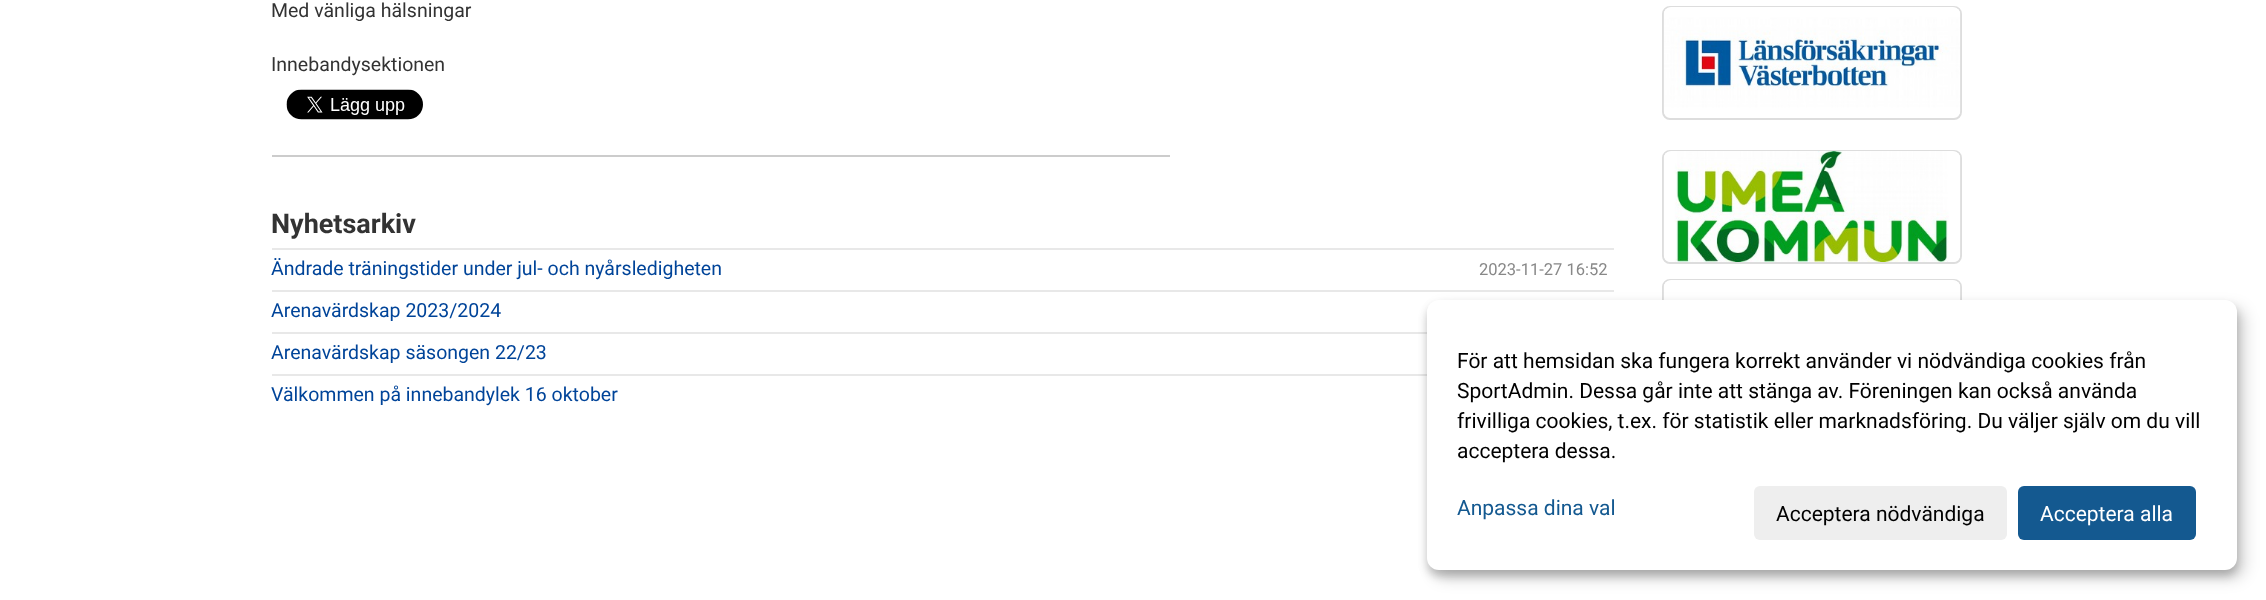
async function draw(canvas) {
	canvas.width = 2266;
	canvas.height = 600;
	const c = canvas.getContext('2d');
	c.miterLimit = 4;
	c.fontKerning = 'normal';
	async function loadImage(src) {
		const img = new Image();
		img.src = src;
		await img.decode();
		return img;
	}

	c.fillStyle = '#fff';
	c.fillRect(0, 0, 2266, 600);
	c.font = '19.5px Roboto';
	c.fillStyle = '#333';
	c.fillText('Med vänliga hälsningar', 271, 17);
	c.fillText('Innebandysektionen', 271, 71);
	c.drawImage(await loadImage('img1.png'), 286, 89, 137, 31);
	c.fillStyle = '#ccc';
	c.fillRect(272, 155, 898, 2);
	c.font = 'bold 27px Roboto';
	c.fillStyle = '#333';
	c.fillText('Nyhetsarkiv', 271, 233);
	c.fillStyle = '#e8e8e8';
	c.fillRect(272, 248, 1342, 2);
	c.font = '19.5px Roboto';
	c.fillStyle = '#049';
	c.fillText('Ändrade träningstider under jul- och nyårsledigheten', 271, 275);
	c.font = '16.5px Roboto';
	c.fillStyle = '#888';
	c.fillText('2023-11-27 16:52', 1479, 275);
	c.fillStyle = '#e8e8e8';
	c.fillRect(272, 290, 1342, 2);
	c.font = '19.5px Roboto';
	c.fillStyle = '#049';
	c.fillText('Arenavärdskap 2023/2024', 271, 317);
	c.fillStyle = '#e8e8e8';
	c.fillRect(272, 332, 1155, 2);
	c.fillStyle = '#049';
	c.fillText('Arenavärdskap säsongen 22/23', 271, 359);
	c.fillStyle = '#e8e8e8';
	c.fillRect(272, 374, 1155, 2);
	c.fillStyle = '#049';
	c.fillText('Välkommen på innebandylek 16 oktober', 271, 401);
	c.beginPath();
	c.roundRect(1663, 7, 298, 112, 7);
	c.strokeStyle = '#ddd';
	c.lineWidth = 2;
	c.stroke();
	c.drawImage(await loadImage('img2.png'), 1663, 7, 298, 107);
	c.beginPath();
	c.roundRect(1663, 151, 298, 112, 7);
	c.stroke();
	c.drawImage(await loadImage('img3.png'), 1663, 151, 298, 111);
	c.beginPath();
	c.roundRect(1663, 280, 298, 166, 7);
	c.stroke();
	c.drawImage(await loadImage('img4.png'), 1663, 280, 298, 20);
	c.fillStyle = '#00000030';
	c.filter = 'blur(7.5px)';
	c.beginPath();
	c.roundRect(1434, 308, 810, 270, 12);
	c.fill();
	c.filter = 'none';
	c.fillStyle = '#00000033';
	c.filter = 'blur(4.5px)';
	c.beginPath();
	c.roundRect(1427, 306, 810, 270, 12);
	c.fill();
	c.filter = 'none';
	c.fillStyle = '#fff';
	c.beginPath();
	c.roundRect(1427, 300, 810, 270, 12);
	c.fill();
	c.font = '21px Roboto';
	c.fillStyle = '#000';
	for (const [text, x, y] of [
		['För att hemsidan ska fungera korrekt använder vi nödvändiga cookies från', 1457, 368],
		['SportAdmin. Dessa går inte att stänga av. Föreningen kan också använda', 1457, 398],
		['frivilliga cookies, t.ex. för statistik eller marknadsföring. Du väljer själv om du vill', 1457, 428],
		['acceptera dessa.', 1457, 458],
	]) {
		c.fillText(text, x, y);
	}
	c.fillStyle = '#145990';
	c.fillText('Anpassa dina val', 1457, 515);
	c.fillStyle = '#eee';
	c.beginPath();
	c.roundRect(1754, 486, 253, 54, 6);
	c.fill();
	c.fillStyle = '#000';
	c.fillText('Acceptera nödvändiga', 1776, 521);
	c.fillStyle = '#145990';
	c.beginPath();
	c.roundRect(2018, 486, 178, 54, 6);
	c.fill();
	c.fillStyle = '#fff';
	c.fillText('Acceptera alla', 2040, 521);
}

draw(document.querySelector('canvas'));
